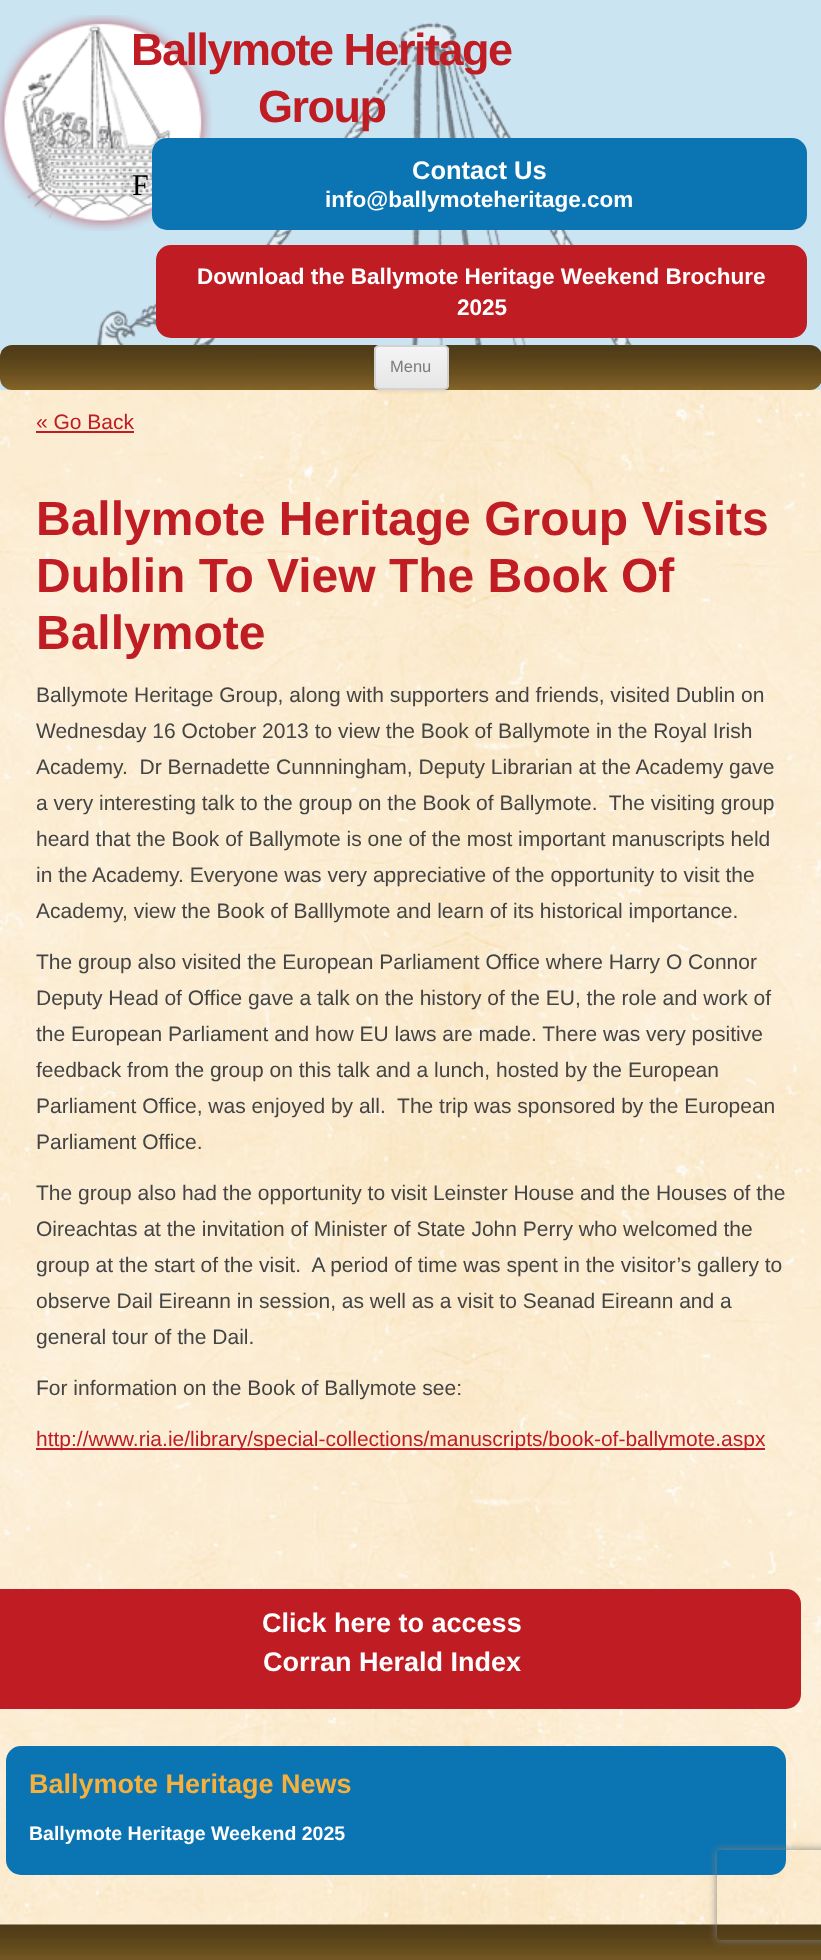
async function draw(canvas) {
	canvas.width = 821;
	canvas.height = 1960;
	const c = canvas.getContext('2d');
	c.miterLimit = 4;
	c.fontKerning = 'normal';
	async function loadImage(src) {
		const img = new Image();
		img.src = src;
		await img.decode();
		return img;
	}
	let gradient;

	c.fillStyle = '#cbe4f2';
	c.fillRect(0, 0, 821, 1960);
	c.drawImage(await loadImage('img1.png'), 96, 21, 537, 324);
	c.drawImage(await loadImage('img2.png'), 0, 15, 212, 216);
	c.letterSpacing = '-1.5px';
	c.font = 'bold 45px Liberation Sans';
	c.fillStyle = '#bf1c23';
	c.fillText('Ballymote Heritage', 131, 65);
	c.fillText('Group', 258, 122);
	c.letterSpacing = '0px';
	c.font = '30px Liberation Serif';
	c.fillStyle = '#000';
	c.fillText('F', 132, 195);
	c.fillStyle = '#0b74b2';
	c.beginPath();
	c.roundRect(152, 138, 655, 92, 15);
	c.fill();
	c.font = 'bold 25.5px Liberation Sans';
	c.fillStyle = '#fff';
	c.fillText('Contact Us', 412, 179);
	c.font = 'bold 22.5px Liberation Sans';
	c.fillText('info@ballymoteheritage.com', 325, 207);
	c.fillStyle = '#bf1c23';
	c.beginPath();
	c.roundRect(156, 245, 651, 93, 15);
	c.fill();
	c.fillStyle = '#fff';
	c.fillText('Download the Ballymote Heritage Weekend Brochure', 197, 284);
	c.fillText('2025', 457, 315);
	c.drawImage(await loadImage('img3.png'), 0, 345, 821, 45);
	c.drawImage(await loadImage('img4.png'), 0, 390, 821, 1535);
	c.fillStyle = '#4040401a';
	c.filter = 'blur(1.5px)';
	c.beginPath();
	c.roundRect(374, 347, 75, 45, 5);
	c.fill();
	c.filter = 'none';
	c.save();
	c.beginPath();
	c.roundRect(374, 345, 75, 45, 5);
	c.clip();
	gradient = c.createLinearGradient(411, 347, 411, 389);
	gradient.addColorStop(0, '#f4f4f4');
	gradient.addColorStop(1, '#e6e6e6');
	c.fillStyle = gradient;
	c.fillRect(374, 347, 75, 42);
	c.restore();
	c.beginPath();
	c.roundRect(375, 346, 73, 43, 4);
	c.strokeStyle = '#d2d2d2';
	c.lineWidth = 2;
	c.stroke();
	c.font = '16.5px Liberation Sans';
	c.fillStyle = '#7c7c7c';
	c.fillText('Menu', 390, 372);
	c.font = '21px Liberation Sans';
	c.fillStyle = '#bf1c23';
	c.fillText('« Go Back', 36, 429);
	c.fillRect(36, 431, 98, 2);
	c.font = 'bold 48px Liberation Sans';
	for (const [text, x, y] of [
		['Ballymote Heritage Group Visits', 36, 535],
		['Dublin To View The Book Of', 36, 592],
		['Ballymote', 36, 649],
	]) {
		c.fillText(text, x, y);
	}
	c.font = '21px Liberation Sans';
	c.fillStyle = '#444';
	for (const [text, x, y] of [
		['Ballymote Heritage Group, along with supporters and friends, visited Dublin on', 36, 702],
		['Wednesday 16 October 2013 to view the Book of Ballymote in the Royal Irish', 36, 738],
		['Academy.  Dr Bernadette Cunnningham, Deputy Librarian at the Academy gave', 36, 774],
		['a very interesting talk to the group on the Book of Ballymote.  The visiting group', 36, 810],
		['heard that the Book of Ballymote is one of the most important manuscripts held', 36, 846],
		['in the Academy. Everyone was very appreciative of the opportunity to visit the', 36, 882],
		['Academy, view the Book of Balllymote and learn of its historical importance.', 36, 918],
		['The group also visited the European Parliament Office where Harry O Connor', 36, 969],
		['Deputy Head of Office gave a talk on the history of the EU, the role and work of', 36, 1005],
		['the European Parliament and how EU laws are made. There was very positive', 36, 1041],
		['feedback from the group on this talk and a lunch, hosted by the European', 36, 1077],
		['Parliament Office, was enjoyed by all.  The trip was sponsored by the European', 36, 1113],
		['Parliament Office.', 36, 1149],
		['The group also had the opportunity to visit Leinster House and the Houses of the', 36, 1200],
		['Oireachtas at the invitation of Minister of State John Perry who welcomed the', 36, 1236],
		['group at the start of the visit.  A period of time was spent in the visitor’s gallery to', 36, 1272],
		['observe Dail Eireann in session, as well as a visit to Seanad Eireann and a', 36, 1308],
		['general tour of the Dail.', 36, 1344],
		['For information on the Book of Ballymote see:', 36, 1395],
	]) {
		c.fillText(text, x, y);
	}
	c.fillStyle = '#bf1c23';
	c.fillRect(36, 1448, 729, 2);
	c.fillText('http://www.ria.ie/library/special-collections/manuscripts/book-of-ballymote.aspx', 36, 1446);
	c.beginPath();
	c.roundRect(-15, 1589, 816, 120, 15);
	c.fill();
	c.font = 'bold 27px Liberation Sans';
	c.fillStyle = '#fff';
	c.fillText('Click here to access', 262, 1632);
	c.fillText('Corran Herald Index', 263, 1671);
	c.fillStyle = '#0b74b2';
	c.beginPath();
	c.roundRect(6, 1746, 780, 129, 15);
	c.fill();
	c.fillStyle = '#f7b03c';
	c.fillText('Ballymote Heritage News', 29, 1793);
	c.font = 'bold 19.5px Liberation Sans';
	c.fillStyle = '#fff';
	c.fillText('Ballymote Heritage Weekend 2025', 29, 1840);
	c.drawImage(await loadImage('img5.png'), 0, 1924, 821, 36);
	c.save();
	c.beginPath();
	c.moveTo(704, 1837);
	c.lineTo(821, 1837);
	c.lineTo(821, 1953);
	c.lineTo(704, 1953);
	c.closePath();
	c.moveTo(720, 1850);
	c.lineTo(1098, 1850);
	c.bezierCurveTo(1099.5, 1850, 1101, 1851.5, 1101, 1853);
	c.lineTo(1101, 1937);
	c.bezierCurveTo(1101, 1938.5, 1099.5, 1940, 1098, 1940);
	c.lineTo(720, 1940);
	c.bezierCurveTo(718.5, 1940, 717, 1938.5, 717, 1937);
	c.lineTo(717, 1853);
	c.bezierCurveTo(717, 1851.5, 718.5, 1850, 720, 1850);
	c.closePath();
	c.clip('evenodd');
	c.fillStyle = '#808080';
	c.filter = 'blur(4px)';
	c.beginPath();
	c.roundRect(717, 1850, 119, 90, 3);
	c.fill();
	c.filter = 'none';
	c.restore();
}

draw(document.querySelector('canvas'));
